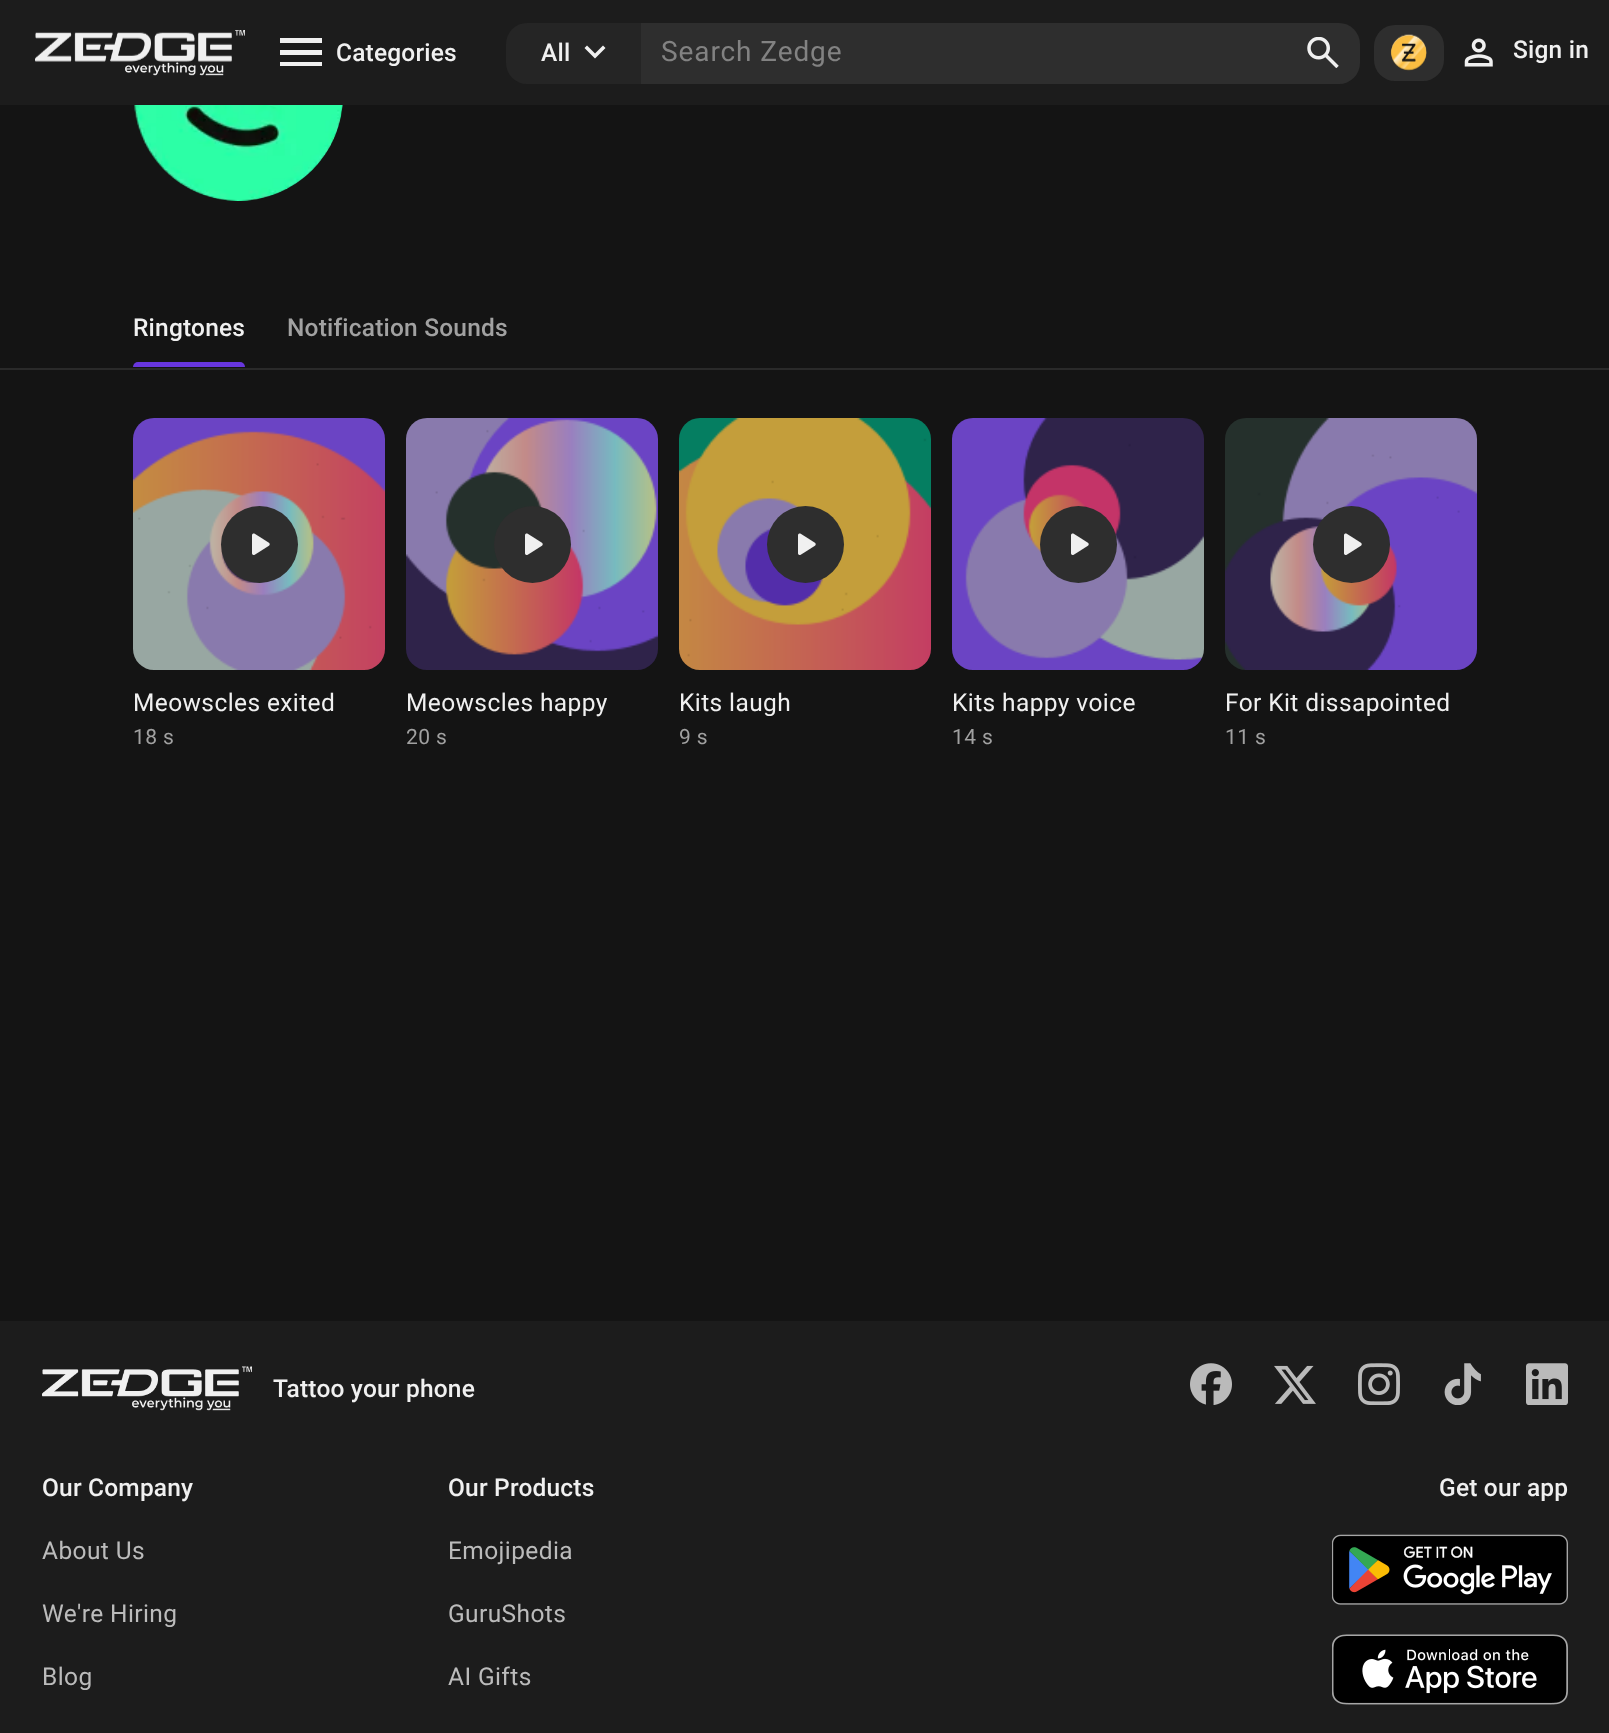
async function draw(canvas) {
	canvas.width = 1609;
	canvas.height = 1733;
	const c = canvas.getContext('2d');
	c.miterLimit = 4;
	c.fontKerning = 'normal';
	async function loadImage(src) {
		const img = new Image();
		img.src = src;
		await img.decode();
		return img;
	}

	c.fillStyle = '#141414';
	c.fillRect(0, 0, 1609, 1733);
	c.fillStyle = '#1c1c1c';
	c.fillRect(0, 0, 1609, 105);
	c.drawImage(await loadImage('img1.png'), 35, 30, 210, 32);
	c.drawImage(await loadImage('img2.png'), 125, 62, 99, 14);
	c.fillStyle = '#f0f0f0';
	c.beginPath();
	c.moveTo(280, 66);
	c.lineTo(280, 62);
	c.lineTo(322, 62);
	c.lineTo(322, 66);
	c.closePath();
	c.moveTo(280, 55);
	c.lineTo(280, 50);
	c.lineTo(322, 50);
	c.lineTo(322, 55);
	c.closePath();
	c.moveTo(280, 43);
	c.lineTo(280, 38);
	c.lineTo(322, 38);
	c.lineTo(322, 43);
	c.closePath();
	c.fill();
	c.letterSpacing = '0.2px';
	c.font = '500 24.5px Roboto';
	c.fillText('Categories', 336, 61);
	c.fillStyle = '#252525';
	c.beginPath();
	c.roundRect(506, 23, 135, 61, [21, 0, 0, 21]);
	c.fill();
	c.fillStyle = '#f0f0f0';
	c.fillText('All', 541, 61);
	c.beginPath();
	c.moveTo(595, 58.5);
	c.lineTo(584.5, 48);
	c.lineTo(587, 45.5);
	c.lineTo(595, 53.5);
	c.lineTo(603, 45.5);
	c.lineTo(605.5, 48);
	c.closePath();
	c.fill();
	c.fillStyle = '#2e2e2e';
	c.beginPath();
	c.roundRect(641, 23, 719, 61, [0, 21, 21, 0]);
	c.fill();
	c.letterSpacing = '0.9px';
	c.font = '28px Roboto';
	c.fillStyle = '#828282';
	c.fillText('Search Zedge', 661, 61);
	c.drawImage(await loadImage('img3.png'), 1307, 37, 32, 31);
	c.fillStyle = '#2e2e2e';
	c.beginPath();
	c.roundRect(1374, 25, 70, 56, 21);
	c.fill();
	c.drawImage(await loadImage('img4.png'), 1390, 34, 37, 37);
	c.drawImage(await loadImage('img5.png'), 1464, 38, 29, 29);
	c.letterSpacing = '0.2px';
	c.font = '500 24.5px Roboto';
	c.fillStyle = '#f0f0f0';
	c.fillText('Sign in', 1513, 58);
	c.drawImage(await loadImage('img6.png'), 134, 105, 209, 96);
	c.fillText('Ringtones', 133, 336);
	c.fillStyle = '#6836dd';
	c.beginPath();
	c.roundRect(133, 362, 112, 5, [5, 5, 0, 0]);
	c.fill();
	c.fillStyle = '#a1a1a1';
	c.fillText('Notification Sounds', 287, 336);
	c.fillStyle = '#2a2a2a';
	c.fillRect(0, 368, 1609, 2);
	c.drawImage(await loadImage('img7.png'), 133, 418, 252, 252);
	c.fillStyle = '#2e2e2e';
	c.beginPath();
	c.arc(259.5, 544.5, 38.5, 0, 2 * Math.PI);
	c.fill();
	c.drawImage(await loadImage('img8.png'), 252, 533, 18, 22);
	c.letterSpacing = '0.4px';
	c.font = '24.5px Roboto';
	c.fillStyle = '#f0f0f0';
	c.fillText('Meowscles exited', 133, 711);
	c.font = '21px Roboto';
	c.fillStyle = '#a1a1a1';
	c.fillText('18 s', 133, 744);
	c.drawImage(await loadImage('img9.png'), 406, 418, 252, 252);
	c.fillStyle = '#2e2e2e';
	c.beginPath();
	c.arc(532.5, 544.5, 38.5, 0, 2 * Math.PI);
	c.fill();
	c.drawImage(await loadImage('img8.png'), 525, 533, 18, 22);
	c.font = '24.5px Roboto';
	c.fillStyle = '#f0f0f0';
	c.fillText('Meowscles happy', 406, 711);
	c.font = '21px Roboto';
	c.fillStyle = '#a1a1a1';
	c.fillText('20 s', 406, 744);
	c.drawImage(await loadImage('img10.png'), 679, 418, 252, 252);
	c.fillStyle = '#2e2e2e';
	c.beginPath();
	c.arc(805.5, 544.5, 38.5, 0, 2 * Math.PI);
	c.fill();
	c.drawImage(await loadImage('img8.png'), 798, 533, 18, 22);
	c.font = '24.5px Roboto';
	c.fillStyle = '#f0f0f0';
	c.fillText('Kits laugh', 679, 711);
	c.font = '21px Roboto';
	c.fillStyle = '#a1a1a1';
	c.fillText('9 s', 679, 744);
	c.drawImage(await loadImage('img11.png'), 952, 418, 252, 252);
	c.fillStyle = '#2e2e2e';
	c.beginPath();
	c.arc(1078.5, 544.5, 38.5, 0, 2 * Math.PI);
	c.fill();
	c.drawImage(await loadImage('img8.png'), 1071, 533, 18, 22);
	c.font = '24.5px Roboto';
	c.fillStyle = '#f0f0f0';
	c.fillText('Kits happy voice', 952, 711);
	c.font = '21px Roboto';
	c.fillStyle = '#a1a1a1';
	c.fillText('14 s', 952, 744);
	c.drawImage(await loadImage('img12.png'), 1225, 418, 252, 252);
	c.fillStyle = '#2e2e2e';
	c.beginPath();
	c.arc(1351.5, 544.5, 38.5, 0, 2 * Math.PI);
	c.fill();
	c.drawImage(await loadImage('img8.png'), 1344, 533, 18, 22);
	c.font = '24.5px Roboto';
	c.fillStyle = '#f0f0f0';
	c.fillText('For Kit dissapointed', 1225, 711);
	c.font = '21px Roboto';
	c.fillStyle = '#a1a1a1';
	c.fillText('11 s', 1225, 744);
	c.fillStyle = '#1c1c1c';
	c.fillRect(0, 1321, 1609, 412);
	c.drawImage(await loadImage('img13.png'), 42, 1366, 210, 31);
	c.drawImage(await loadImage('img2.png'), 132, 1397, 99, 14);
	c.letterSpacing = '0.2px';
	c.font = '500 24.5px Roboto';
	c.fillStyle = '#f0f0f0';
	c.fillText('Tattoo your phone', 273, 1397);
	c.drawImage(await loadImage('img14.png'), 1190, 1363, 42, 42);
	c.drawImage(await loadImage('img15.png'), 1274, 1365, 42, 39);
	c.drawImage(await loadImage('img16.png'), 1358, 1363, 42, 42);
	c.drawImage(await loadImage('img17.png'), 1444, 1363, 37, 42);
	c.drawImage(await loadImage('img18.png'), 1526, 1363, 42, 42);
	c.fillText('Our Company', 42, 1496);
	c.letterSpacing = '0.4px';
	c.font = '24.5px Roboto';
	c.fillStyle = '#bbb';
	for (const [text, x, y] of [
		['About Us', 42, 1559],
		['We\'re Hiring', 42, 1622],
		['Blog', 42, 1685],
	]) {
		c.fillText(text, x, y);
	}
	c.letterSpacing = '0.2px';
	c.font = '500 24.5px Roboto';
	c.fillStyle = '#f0f0f0';
	c.fillText('Our Products', 448, 1496);
	c.letterSpacing = '0.4px';
	c.font = '24.5px Roboto';
	c.fillStyle = '#bbb';
	for (const [text, x, y] of [
		['Emojipedia', 448, 1559],
		['GuruShots', 448, 1622],
		['AI Gifts', 448, 1685],
	]) {
		c.fillText(text, x, y);
	}
	c.letterSpacing = '0.2px';
	c.font = '500 24.5px Roboto';
	c.fillStyle = '#f0f0f0';
	c.fillText('Get our app', 1439, 1496);
	c.drawImage(await loadImage('img19.png'), 1332, 1534, 236, 71);
	c.drawImage(await loadImage('img20.png'), 1332, 1634, 236, 71);
}

draw(document.querySelector('canvas'));
